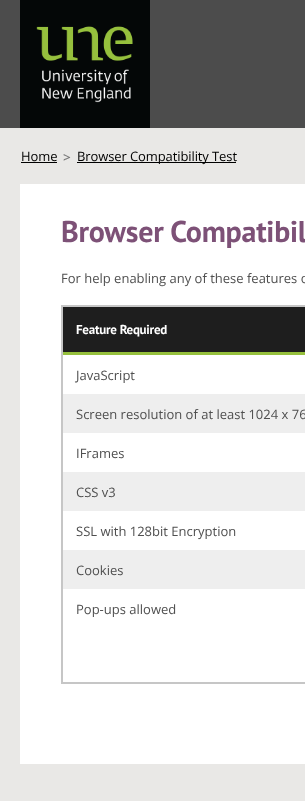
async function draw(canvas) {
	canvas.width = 305;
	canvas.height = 801;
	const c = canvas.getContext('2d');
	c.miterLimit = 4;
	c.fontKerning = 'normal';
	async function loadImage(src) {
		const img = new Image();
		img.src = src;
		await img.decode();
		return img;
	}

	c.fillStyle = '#e9e8e6';
	c.fillRect(0, 0, 305, 801);
	c.fillStyle = '#4c4c4c';
	c.fillRect(0, 0, 305, 128);
	c.drawImage(await loadImage('img1.png'), 20, 0, 130, 128);
	c.letterSpacing = '-0.1px';
	c.font = '13px Open Sans';
	c.fillStyle = '#000';
	c.fillText('Home', 21, 161);
	c.fillRect(21, 162, 36, 1);
	c.drawImage(await loadImage('img2.png'), 63, 154, 8, 7);
	c.fillRect(77, 162, 159, 1);
	c.fillText('Browser Compatibility Test', 77, 161);
	c.fillStyle = '#fff';
	c.fillRect(20, 184, 285, 580);
	c.letterSpacing = '-0.25px';
	c.font = 'bold 30px PT Sans';
	c.fillStyle = '#7d5177';
	c.fillText('Browser Compatibil', 61, 242);
	c.letterSpacing = '0px';
	c.font = '13px Open Sans';
	c.fillStyle = '#4f4f4f';
	c.fillText('For help enabling any of these features o', 61, 283);
	for (const [x, y, w, h, color] of [
		[61, 305, 244, 2, '#c6c6c6'],
		[61, 682, 244, 2, '#c6c6c6'],
		[61, 305, 2, 379, '#c6c6c6'],
		[63, 307, 242, 45, '#1e1e1e'],
	]) {
		c.fillStyle = color;
		c.fillRect(x, y, w, h);
	}
	c.fillStyle = '#96c03d';
	c.beginPath();
	c.moveTo(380, 355);
	c.lineTo(63, 355);
	c.lineTo(63, 352);
	c.lineTo(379, 352);
	c.closePath();
	c.fill();
	c.letterSpacing = '-0.25px';
	c.font = 'bold 13px PT Sans';
	c.fillStyle = '#fff';
	c.fillText('Feature Required', 76, 334);
	c.letterSpacing = '0px';
	c.font = '13px Open Sans';
	c.fillStyle = '#4f4f4f';
	c.fillText('JavaScript', 76, 380);
	c.fillStyle = '#eee';
	c.fillRect(63, 394, 242, 39);
	c.fillStyle = '#4f4f4f';
	c.fillText('Screen resolution of at least 1024 x 76', 76, 419);
	c.fillText('IFrames', 76, 458);
	c.fillStyle = '#eee';
	c.fillRect(63, 472, 242, 39);
	c.fillStyle = '#4f4f4f';
	c.fillText('CSS v3', 76, 497);
	c.fillText('SSL with 128bit Encryption', 76, 536);
	c.fillStyle = '#eee';
	c.fillRect(63, 550, 242, 39);
	c.fillStyle = '#4f4f4f';
	c.fillText('Cookies', 76, 575);
	c.fillText('Pop-ups allowed', 76, 614);
}

draw(document.querySelector('canvas'));
